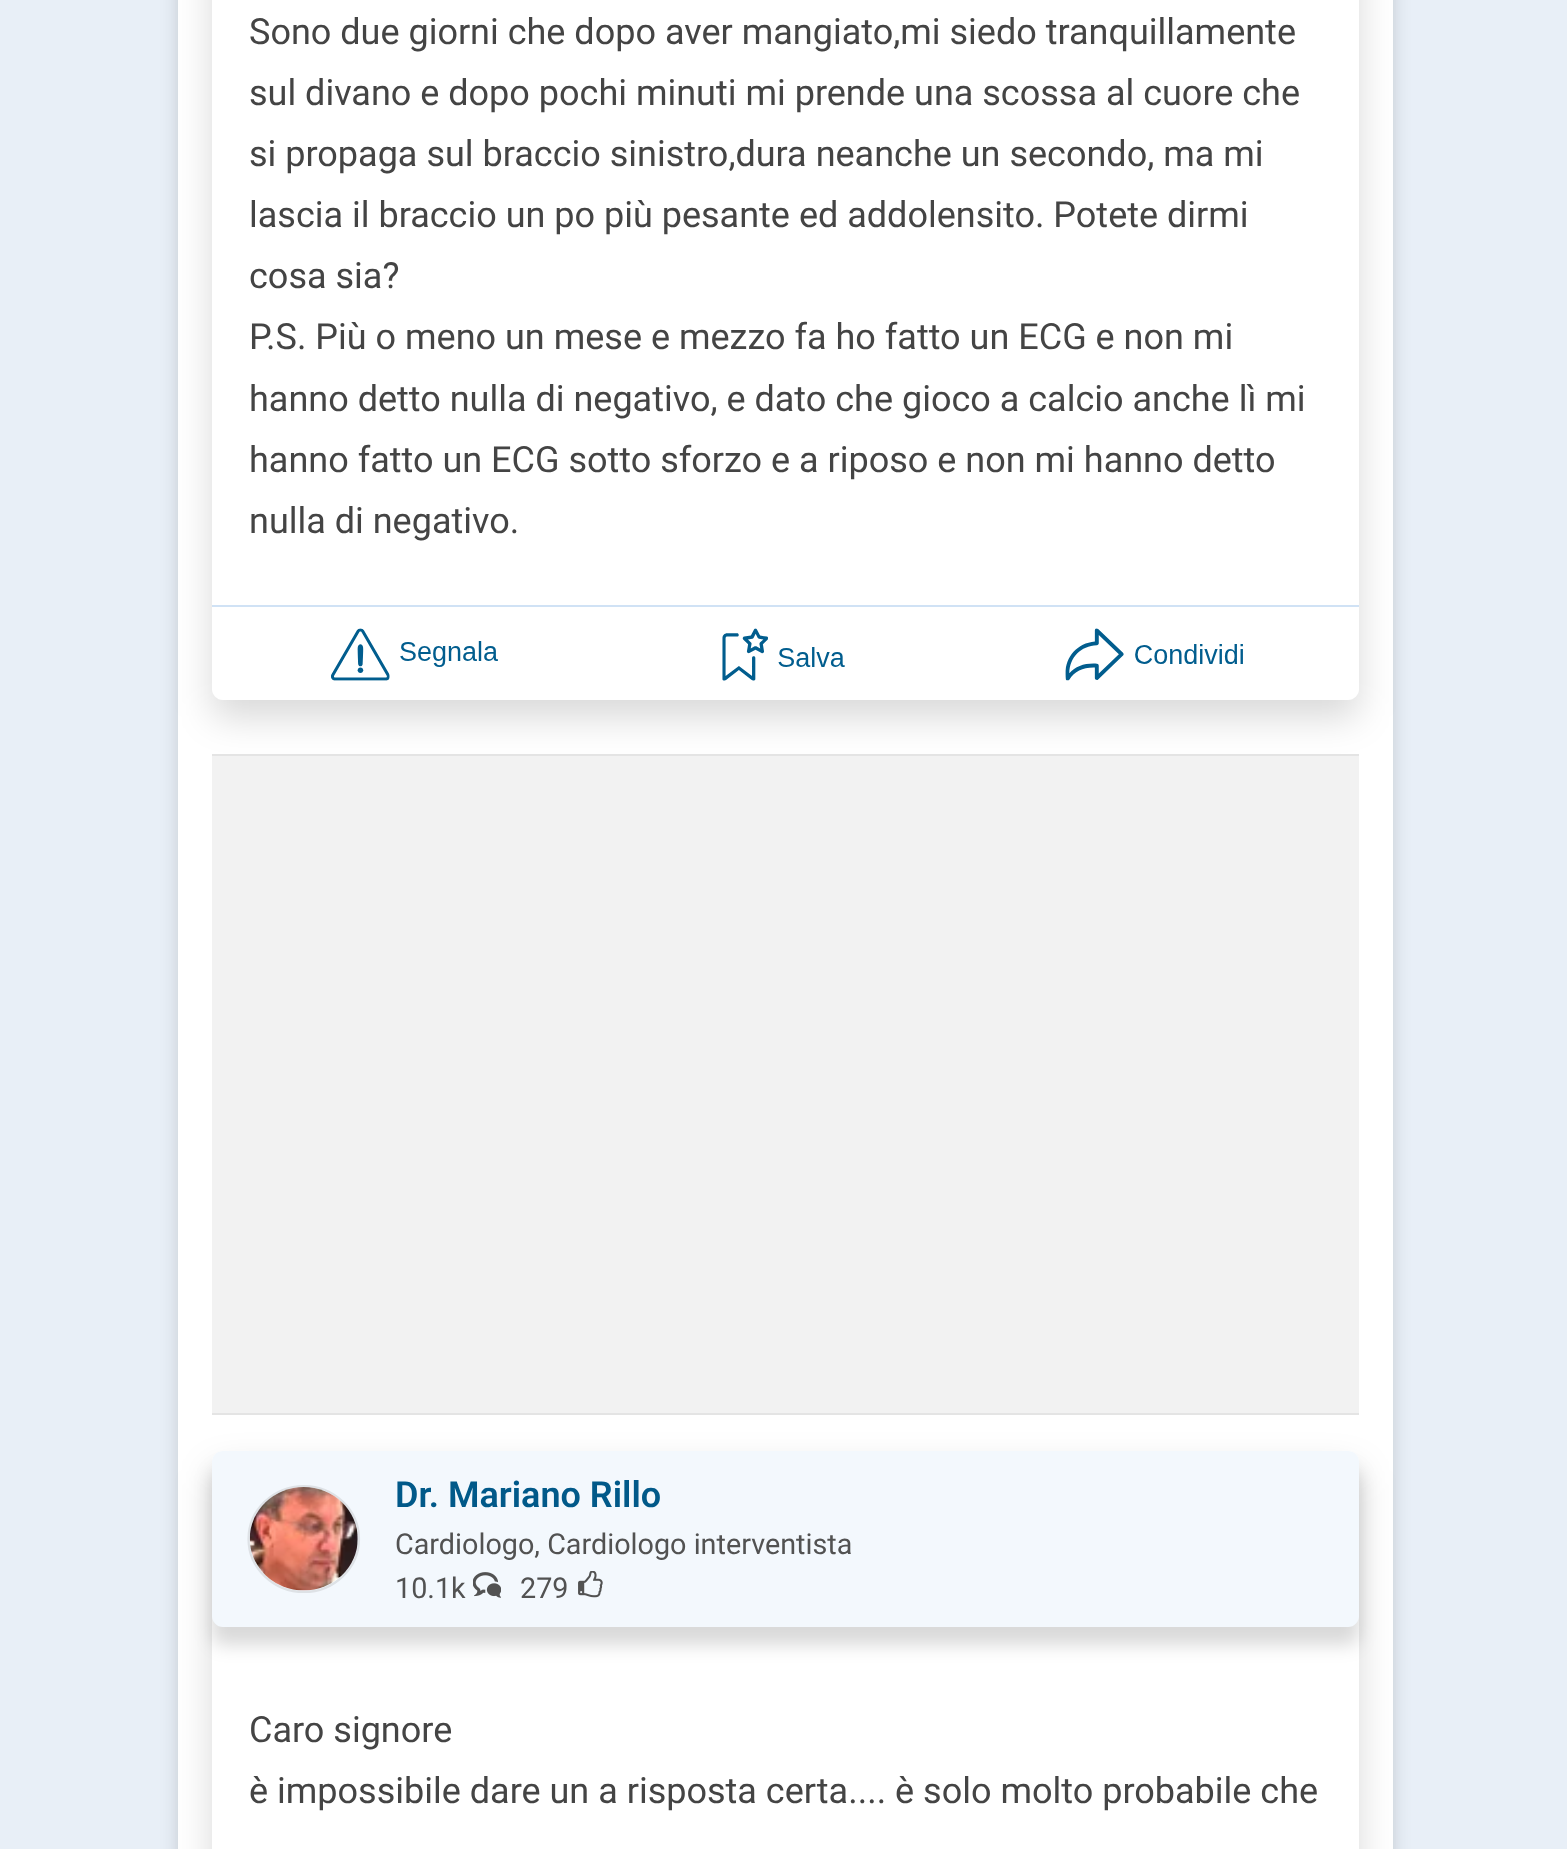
async function draw(canvas) {
	canvas.width = 1567;
	canvas.height = 1849;
	const c = canvas.getContext('2d');
	c.miterLimit = 4;
	c.fontKerning = 'normal';
	async function loadImage(src) {
		const img = new Image();
		img.src = src;
		await img.decode();
		return img;
	}

	c.fillStyle = '#e8eff7';
	c.fillRect(0, 0, 1567, 1849);
	c.fillStyle = '#00000026';
	c.filter = 'blur(9px)';
	c.beginPath();
	c.rect(178, -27, 1215, 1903);
	c.fill();
	c.filter = 'none';
	c.fillStyle = '#fff';
	c.fillRect(178, 0, 1215, 1849);
	c.save();
	c.beginPath();
	c.moveTo(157, 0);
	c.lineTo(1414, 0);
	c.lineTo(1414, 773);
	c.lineTo(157, 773);
	c.closePath();
	c.moveTo(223, -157);
	c.lineTo(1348, -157);
	c.bezierCurveTo(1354, -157, 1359, -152, 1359, -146);
	c.lineTo(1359, 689);
	c.bezierCurveTo(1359, 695, 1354, 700, 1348, 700);
	c.lineTo(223, 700);
	c.bezierCurveTo(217, 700, 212, 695, 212, 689);
	c.lineTo(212, -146);
	c.bezierCurveTo(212, -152, 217, -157, 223, -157);
	c.closePath();
	c.clip('evenodd');
	c.fillStyle = '#00000026';
	c.filter = 'blur(18px)';
	c.beginPath();
	c.roundRect(212, -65, 1147, 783, 11);
	c.fill();
	c.filter = 'none';
	c.restore();
	c.font = '36px Roboto';
	c.fillStyle = '#444';
	for (const [text, x, y] of [
		['Sono due giorni che dopo aver mangiato,mi siedo tranquillamente', 249, 44],
		['sul divano e dopo pochi minuti mi prende una scossa al cuore che', 249, 105],
		['si propaga sul braccio sinistro,dura neanche un secondo, ma mi', 249, 166],
		['lascia il braccio un po più pesante ed addolensito. Potete dirmi', 249, 227],
		['cosa sia?', 249, 288],
		['P.S. Più o meno un mese e mezzo fa ho fatto un ECG e non mi', 249, 349],
		['hanno detto nulla di negativo, e dato che gioco a calcio anche lì mi', 249, 411],
		['hanno fatto un ECG sotto sforzo e a riposo e non mi hanno detto', 249, 472],
		['nulla di negativo.', 249, 533],
	]) {
		c.fillText(text, x, y);
	}
	c.fillStyle = '#d0e2f5';
	c.fillRect(212, 605, 1147, 2);
	c.drawImage(await loadImage('img1.png'), 331, 628, 167, 53);
	c.drawImage(await loadImage('img2.png'), 722, 628, 123, 53);
	c.drawImage(await loadImage('img3.png'), 1065, 628, 178, 53);
	c.fillStyle = '#f2f2f2';
	c.fillRect(212, 756, 1147, 657);
	c.fillStyle = '#e4e4e4';
	c.fillRect(212, 754, 1147, 2);
	c.save();
	c.beginPath();
	c.moveTo(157, 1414);
	c.lineTo(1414, 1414);
	c.lineTo(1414, 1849);
	c.lineTo(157, 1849);
	c.closePath();
	c.moveTo(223, 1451);
	c.lineTo(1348, 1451);
	c.bezierCurveTo(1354, 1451, 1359, 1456, 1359, 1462);
	c.lineTo(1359, 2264);
	c.bezierCurveTo(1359, 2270, 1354, 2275, 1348, 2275);
	c.lineTo(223, 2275);
	c.bezierCurveTo(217, 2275, 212, 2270, 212, 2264);
	c.lineTo(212, 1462);
	c.bezierCurveTo(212, 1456, 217, 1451, 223, 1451);
	c.closePath();
	c.clip('evenodd');
	c.fillStyle = '#00000026';
	c.filter = 'blur(18px)';
	c.beginPath();
	c.roundRect(212, 1469, 1147, 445, 11);
	c.fill();
	c.filter = 'none';
	c.restore();
	c.fillRect(212, 1413, 1147, 2);
	c.fillStyle = '#00000026';
	c.filter = 'blur(9px)';
	c.beginPath();
	c.roundRect(212, 1469, 1147, 176, 11);
	c.fill();
	c.filter = 'none';
	c.fillStyle = '#f3f8fd';
	c.beginPath();
	c.roundRect(212, 1451, 1147, 176, 11);
	c.fill();
	c.beginPath();
	c.moveTo(304, 1486);
	c.bezierCurveTo(334, 1486, 359, 1510, 359, 1539);
	c.bezierCurveTo(359, 1568, 334, 1592, 304, 1592);
	c.bezierCurveTo(273.5, 1592, 248.5, 1568, 248.5, 1539);
	c.bezierCurveTo(248.5, 1510, 273.5, 1486, 304, 1486);
	c.closePath();
	c.strokeStyle = '#dee2e6';
	c.lineWidth = 2.2;
	c.stroke();
	c.drawImage(await loadImage('img4.png'), 249, 1487, 109, 104);
	c.font = '600 36px Roboto';
	c.fillStyle = '#015989';
	c.fillText('Dr. Mariano Rillo', 395, 1507);
	c.font = '28.75px Roboto';
	c.fillStyle = '#525252';
	c.fillText('Cardiologo, Cardiologo interventista', 395, 1554);
	c.fillText('10.1k', 395, 1598);
	c.drawImage(await loadImage('img5.png'), 473, 1572, 28, 26);
	c.fillText('279', 520, 1598);
	c.drawImage(await loadImage('img6.png'), 578, 1571, 25, 27);
	c.font = '36px Roboto';
	c.fillStyle = '#444';
	c.fillText('Caro signore', 249, 1742);
	c.fillText('è impossibile dare un a risposta certa.... è solo molto probabile che', 249, 1803);
}

draw(document.querySelector('canvas'));
